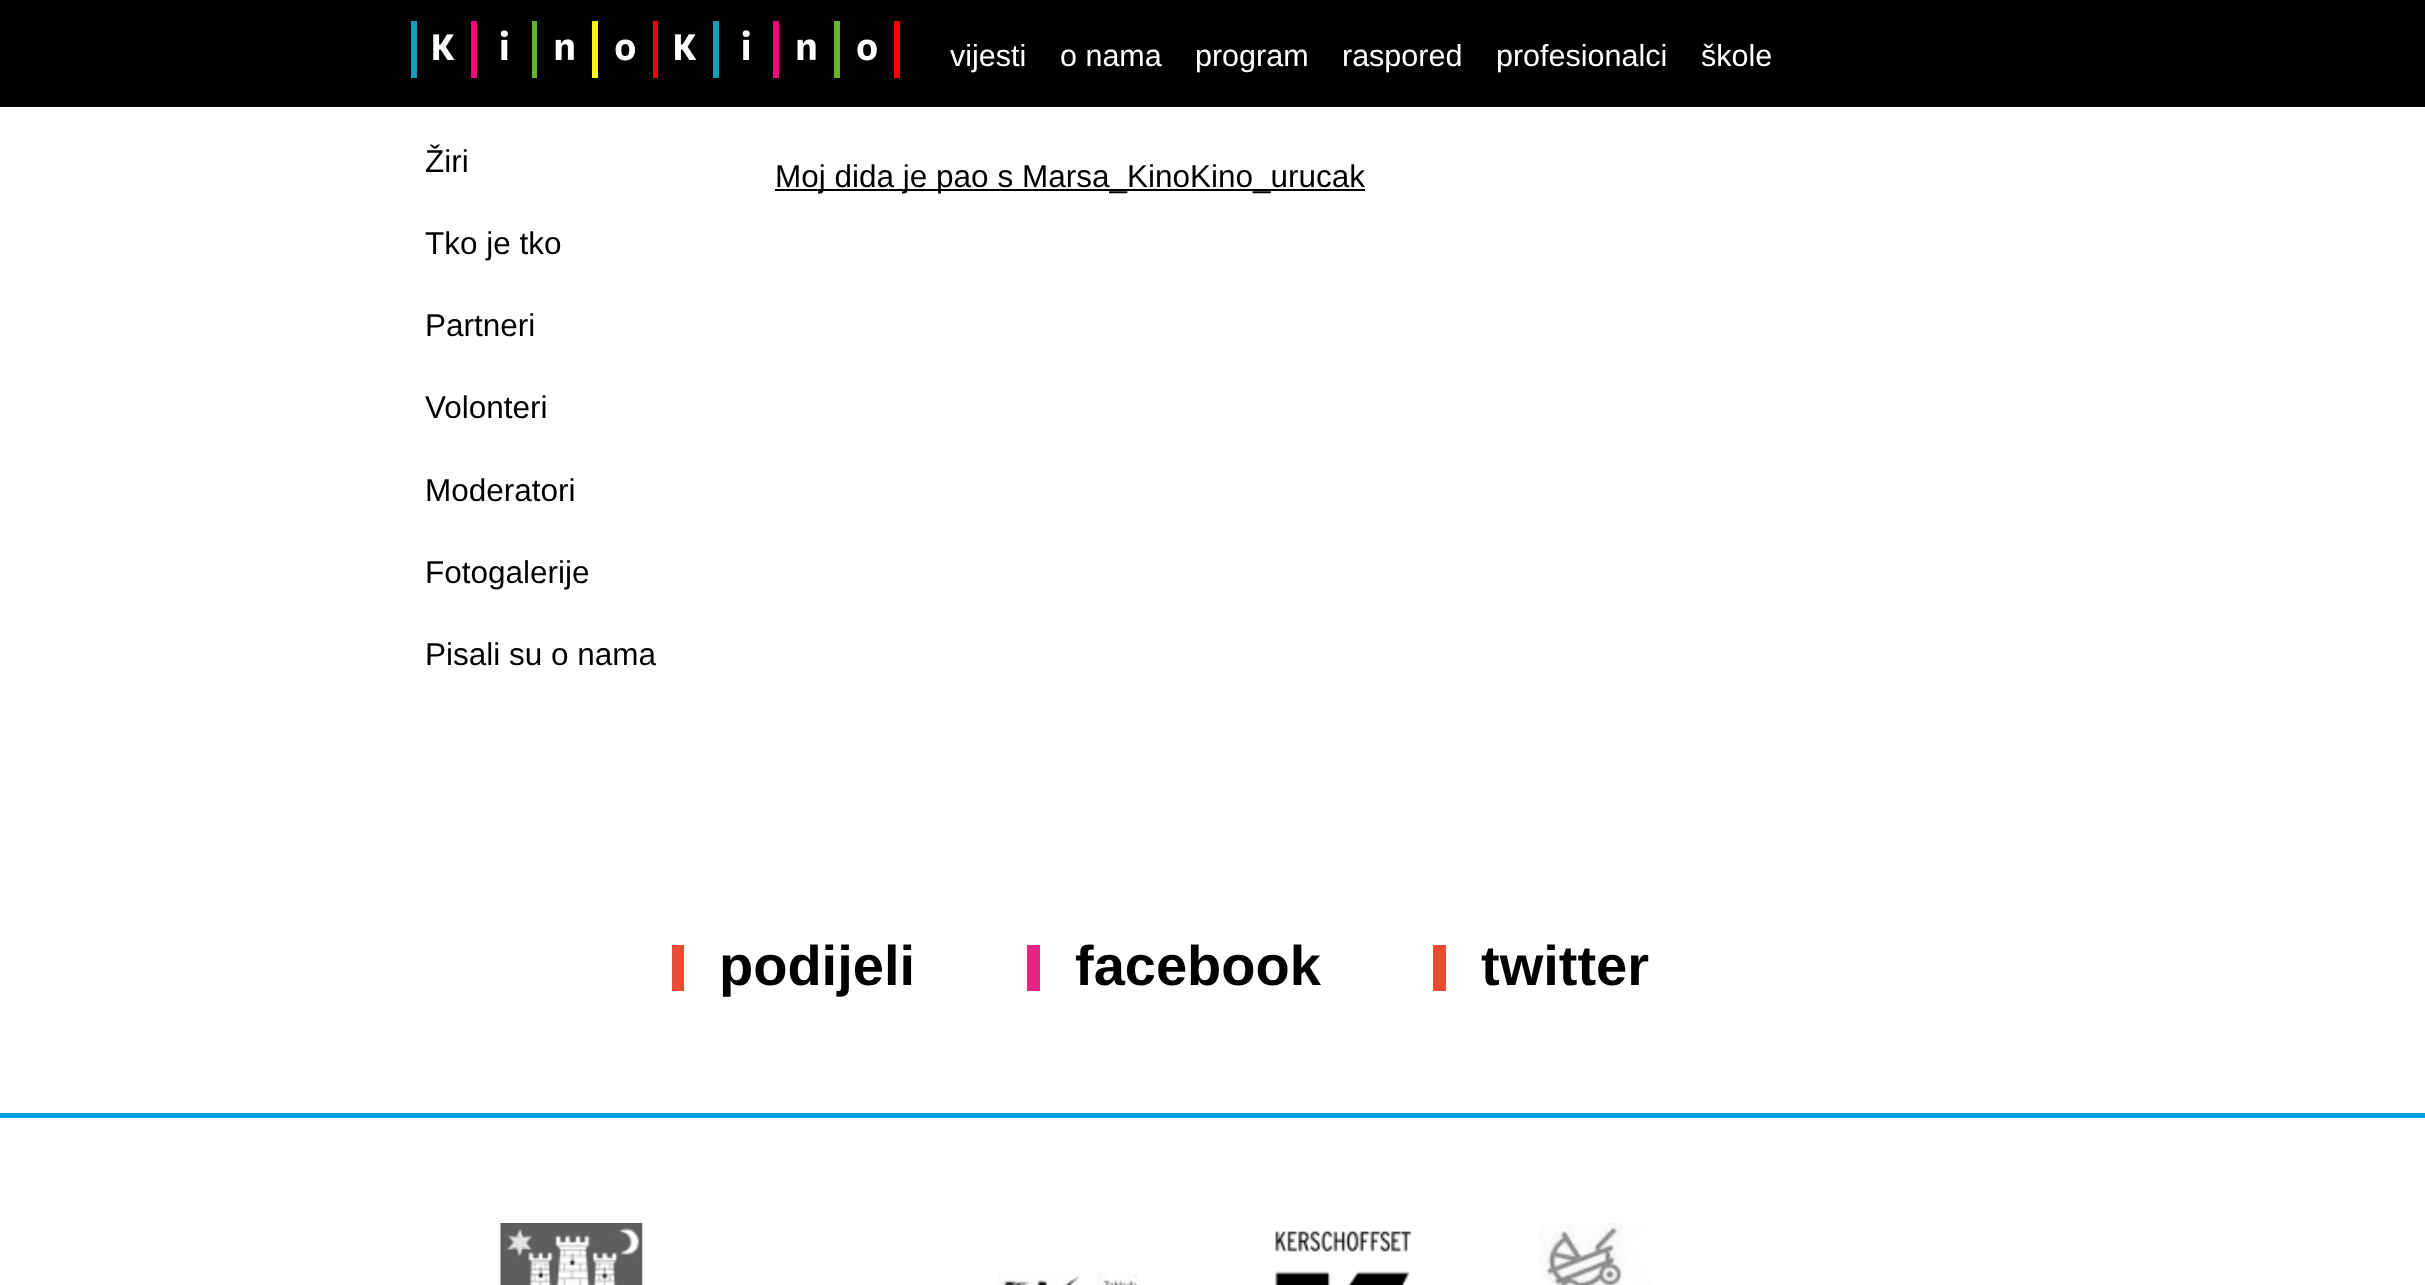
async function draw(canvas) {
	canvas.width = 2425;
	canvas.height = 1285;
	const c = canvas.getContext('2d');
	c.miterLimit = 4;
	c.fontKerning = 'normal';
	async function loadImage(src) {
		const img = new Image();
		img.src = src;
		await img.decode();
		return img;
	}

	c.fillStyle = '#fff';
	c.fillRect(0, 0, 2425, 1285);
	c.fillStyle = '#000';
	c.fillRect(0, 0, 2425, 107);
	c.drawImage(await loadImage('img1.png'), 411, 21, 489, 57);
	c.font = '30.5px Liberation Sans';
	c.fillStyle = '#fff';
	for (const [text, x, y] of [
		['vijesti', 950, 66],
		['o nama', 1060, 66],
		['program', 1195, 66],
		['raspored', 1342, 66],
		['profesionalci', 1496, 66],
		['škole', 1701, 66],
	]) {
		c.fillText(text, x, y);
	}
	c.font = '31.5px Liberation Sans';
	c.fillStyle = '#000';
	for (const [text, x, y] of [
		['Žiri', 425, 172],
		['Tko je tko', 425, 254],
		['Partneri', 425, 336],
		['Volonteri', 425, 418],
		['Moderatori', 425, 501],
		['Fotogalerije', 425, 583],
		['Pisali su o nama', 425, 665],
	]) {
		c.fillText(text, x, y);
	}
	c.fillRect(775, 189, 590, 2);
	c.fillText('Moj dida je pao s Marsa_KinoKino_urucak', 775, 187);
	c.fillStyle = '#e84d31';
	c.fillRect(672, 945, 12, 46);
	c.font = 'bold 56px Liberation Sans';
	c.fillStyle = '#000';
	c.fillText('podijeli', 719, 985);
	c.fillStyle = '#e62184';
	c.fillRect(1027, 945, 13, 46);
	c.fillStyle = '#000';
	c.fillText('facebook', 1075, 985);
	c.fillStyle = '#e84d31';
	c.fillRect(1433, 945, 13, 46);
	c.fillStyle = '#000';
	c.fillText('twitter', 1481, 985);
	c.fillStyle = '#009ee3';
	c.fillRect(0, 1113, 2425, 5);
	c.drawImage(await loadImage('img2.png'), 500, 1223, 143, 62);
	c.drawImage(await loadImage('img3.png'), 997, 1272, 141, 13);
	c.drawImage(await loadImage('img4.png'), 1275, 1230, 137, 55);
	c.drawImage(await loadImage('img5.png'), 1538, 1223, 112, 62);
}

draw(document.querySelector('canvas'));
